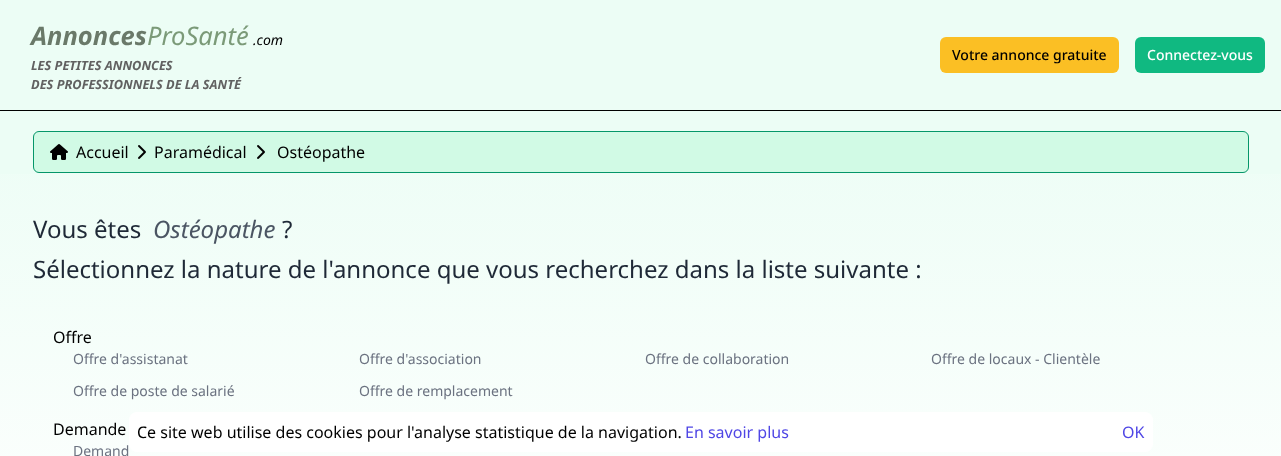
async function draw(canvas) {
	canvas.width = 1281;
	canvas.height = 456;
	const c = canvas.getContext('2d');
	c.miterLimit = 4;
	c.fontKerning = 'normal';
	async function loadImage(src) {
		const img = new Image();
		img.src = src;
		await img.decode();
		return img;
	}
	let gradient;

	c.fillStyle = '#ecfdf5';
	c.fillRect(0, 0, 1281, 456);
	c.fillStyle = '#000';
	c.fillRect(0, 110, 1281, 1);
	c.font = 'italic bold 25.5px Noto Sans';
	c.fillStyle = '#6a7969';
	c.fillText('Annonces', 31, 45);
	c.font = 'italic 25.5px Noto Sans';
	c.fillStyle = '#7b9a78';
	c.fillText('ProSanté', 147, 45);
	c.font = 'italic 14px Noto Sans';
	c.fillStyle = '#000';
	c.fillText('.com', 253, 45);
	c.font = 'italic bold 12.75px Noto Sans';
	c.fillStyle = '#616161';
	c.fillText('LES PETITES ANNONCES', 31, 70);
	c.fillText('DES PROFESSIONNELS DE LA SANTÉ', 31, 89);
	c.fillStyle = '#fbbf24';
	c.beginPath();
	c.roundRect(940, 37, 179, 36, 6);
	c.fill();
	c.font = '500 14px Noto Sans';
	c.fillStyle = '#000';
	c.fillText('Votre annonce gratuite', 952, 60);
	c.fillStyle = '#10b981';
	c.beginPath();
	c.roundRect(1135, 37, 130, 36, 6);
	c.fill();
	c.fillStyle = '#fff';
	c.fillText('Connectez-vous', 1147, 60);
	gradient = c.createLinearGradient(641, 111, 641, 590);
	gradient.addColorStop(0, '#ecfdf5');
	gradient.addColorStop(1, '#fff');
	c.fillStyle = gradient;
	c.fillRect(0, 174, 1281, 282);
	c.fillStyle = '#d1fae5';
	c.beginPath();
	c.roundRect(33.5, 131.5, 1215, 41, 5.5);
	c.fill();
	c.strokeStyle = '#059669';
	c.stroke();
	c.drawImage(await loadImage('img1.png'), 50, 144, 18, 16);
	c.font = '16px Noto Sans';
	c.fillStyle = '#000';
	c.fillText('Accueil', 76, 158);
	c.drawImage(await loadImage('img2.png'), 138, 145, 8, 14);
	c.fillText('Paramédical', 154, 158);
	c.drawImage(await loadImage('img2.png'), 257, 145, 8, 14);
	c.fillText('Ostéopathe', 277, 158);
	c.font = '24px Noto Sans';
	c.fillStyle = '#1f2937';
	c.fillText('Vous êtes', 33, 238);
	c.font = 'italic 24px Noto Sans';
	c.fillStyle = '#4b5563';
	c.fillText('Ostéopathe', 153, 238);
	c.font = '24px Noto Sans';
	c.fillStyle = '#1f2937';
	c.fillText('?', 282, 238);
	c.fillText('Sélectionnez la nature de l\'annonce que vous recherchez dans la liste suivante :', 33, 278);
	c.font = '16px Noto Sans';
	c.fillStyle = '#000';
	c.fillText('Offre', 53, 343);
	c.font = '14px Noto Sans';
	c.fillStyle = '#6b7280';
	for (const [text, x, y] of [
		['Offre d\'assistanat', 73, 364],
		['Offre d\'association', 359, 364],
		['Offre de collaboration', 645, 364],
		['Offre de locaux - Clientèle', 931, 364],
		['Offre de poste de salarié', 73, 396],
		['Offre de remplacement', 359, 396],
	]) {
		c.fillText(text, x, y);
	}
	c.font = '16px Noto Sans';
	c.fillStyle = '#000';
	c.fillText('Demande', 53, 435);
	c.font = '14px Noto Sans';
	c.fillStyle = '#6b7280';
	c.fillText('Demand', 73, 456);
	c.fillStyle = '#fff';
	c.beginPath();
	c.roundRect(129, 412, 1024, 40, 8);
	c.fill();
	c.font = '16px Noto Sans';
	c.fillStyle = '#000';
	c.fillText('Ce site web utilise des cookies pour l\'analyse statistique de la navigation.', 137, 438);
	c.fillStyle = '#4f46e5';
	c.fillText('En savoir plus', 685, 438);
	c.fillText('OK', 1122, 438);
}

draw(document.querySelector('canvas'));
